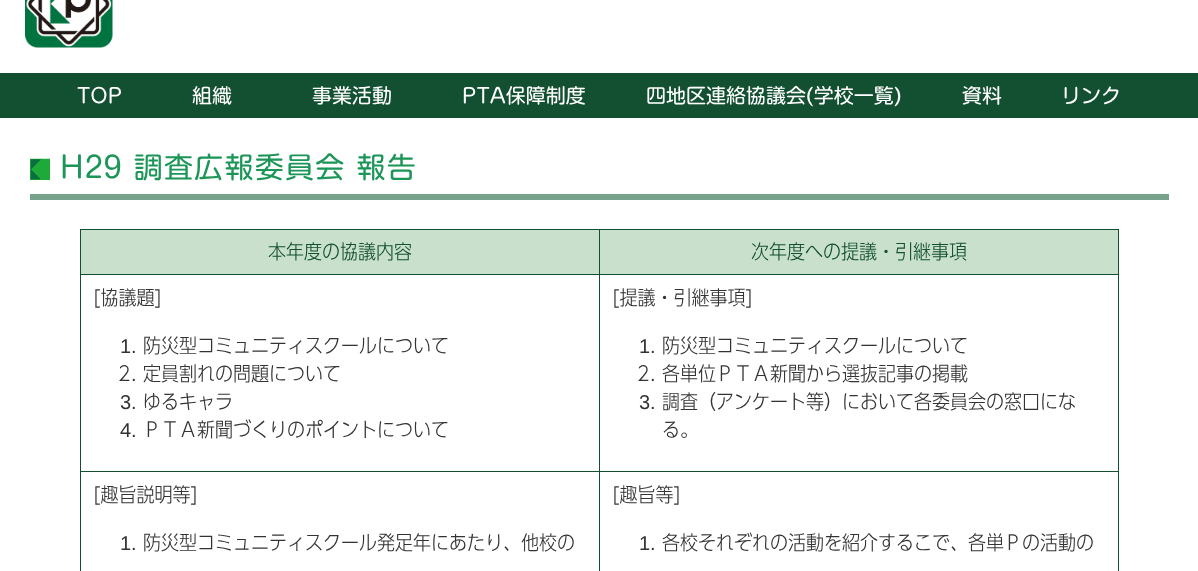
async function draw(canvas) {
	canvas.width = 1198;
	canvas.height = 571;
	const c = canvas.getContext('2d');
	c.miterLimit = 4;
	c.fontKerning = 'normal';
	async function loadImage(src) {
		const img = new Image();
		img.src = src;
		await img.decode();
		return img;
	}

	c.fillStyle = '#fff';
	c.fillRect(0, 0, 1198, 571);
	c.drawImage(await loadImage('img1.png'), 25, 0, 88, 48);
	c.fillStyle = '#134f31';
	c.fillRect(0, 73, 1198, 45);
	c.font = '20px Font';
	c.fillStyle = '#fff';
	for (const [text, x, y] of [
		['TOP', 77, 103],
		['組織', 192, 103],
		['事業活動', 312, 103],
		['PTA保障制度', 462, 103],
		['四地区連絡協議会(学校一覧)', 646, 103],
		['資料', 962, 103],
		['リンク', 1061, 103],
	]) {
		c.fillText(text, x, y);
	}
	c.drawImage(await loadImage('img2.png'), 30, 158, 20, 22);
	c.fillStyle = '#77a38d';
	c.fillRect(30, 194, 1139, 6);
	c.letterSpacing = '1.25px';
	c.font = '29px Font';
	c.fillStyle = '#1c9658';
	c.fillText('H29 調査広報委員会 報告', 60, 178);
	for (const [x, y, w, h, color] of [
		[80, 229, 1039, 1, '#134f31'],
		[1118, 229, 1, 342, '#134f31'],
		[80, 229, 1, 342, '#134f31'],
		[81, 230, 1037, 44, '#c9e0cd'],
		[80, 274, 1039, 1, '#134f31'],
	]) {
		c.fillStyle = color;
		c.fillRect(x, y, w, h);
	}
	c.letterSpacing = '0px';
	c.font = '300 20px Font';
	c.fillText('本年度の協議内容', 268, 259);
	c.fillText('次年度への提議・引継事項', 751, 259);
	c.fillStyle = '#333';
	c.fillText('[協議題]', 93, 305);
	c.font = '20px Liberation Sans';
	c.fillText('1.', 120, 353);
	c.font = '300 20px Font';
	c.fillText('防災型コミュニティスクールについて', 143, 353);
	c.fillText('2', 118, 381);
	c.font = '20px Liberation Sans';
	c.fillText('.', 131, 381);
	c.font = '300 20px Font';
	c.fillText('定員割れの問題について', 143, 381);
	c.font = '20px Liberation Sans';
	c.fillText('3.', 120, 409);
	c.font = '300 20px Font';
	c.fillText('ゆるキャラ', 143, 409);
	c.font = '20px Liberation Sans';
	c.fillText('4.', 120, 437);
	c.font = '300 20px Font';
	c.fillText('ＰＴＡ新聞づくりのポイントについて', 143, 437);
	for (const [x, y, w, h, color] of [
		[599, 471, 520, 1, '#134f31'],
		[599, 471, 1, 100, '#134f31'],
		[80, 471, 520, 1, '#134f31'],
		[599, 229, 1, 244, '#134f31'],
	]) {
		c.fillStyle = color;
		c.fillRect(x, y, w, h);
	}
	c.fillStyle = '#333';
	c.fillText('[提議・引継事項]', 612, 305);
	c.font = '20px Liberation Sans';
	c.fillText('1.', 639, 353);
	c.font = '300 20px Font';
	c.fillText('防災型コミュニティスクールについて', 662, 353);
	c.fillText('2', 637, 381);
	c.font = '20px Liberation Sans';
	c.fillText('.', 650, 381);
	c.font = '300 20px Font';
	c.fillText('各単位ＰＴＡ新聞から選抜記事の掲載', 662, 381);
	c.font = '20px Liberation Sans';
	c.fillText('3.', 639, 409);
	c.font = '300 20px Font';
	for (const [text, x, y] of [
		['調査（アンケート等）において各委員会の窓口にな', 662, 409],
		['る。', 662, 437],
		['[趣旨説明等]', 93, 502],
	]) {
		c.fillText(text, x, y);
	}
	c.font = '20px Liberation Sans';
	c.fillText('1.', 120, 550);
	c.font = '300 20px Font';
	c.fillText('防災型コミュニティスクール発足年にあたり、他校の', 143, 550);
	c.fillText('[趣旨等]', 612, 502);
	c.font = '20px Liberation Sans';
	c.fillText('1.', 639, 550);
	c.font = '300 20px Font';
	c.fillText('各校それぞれの活動を紹介するこで、各単Ｐの活動の', 662, 550);
}

draw(document.querySelector('canvas'));
